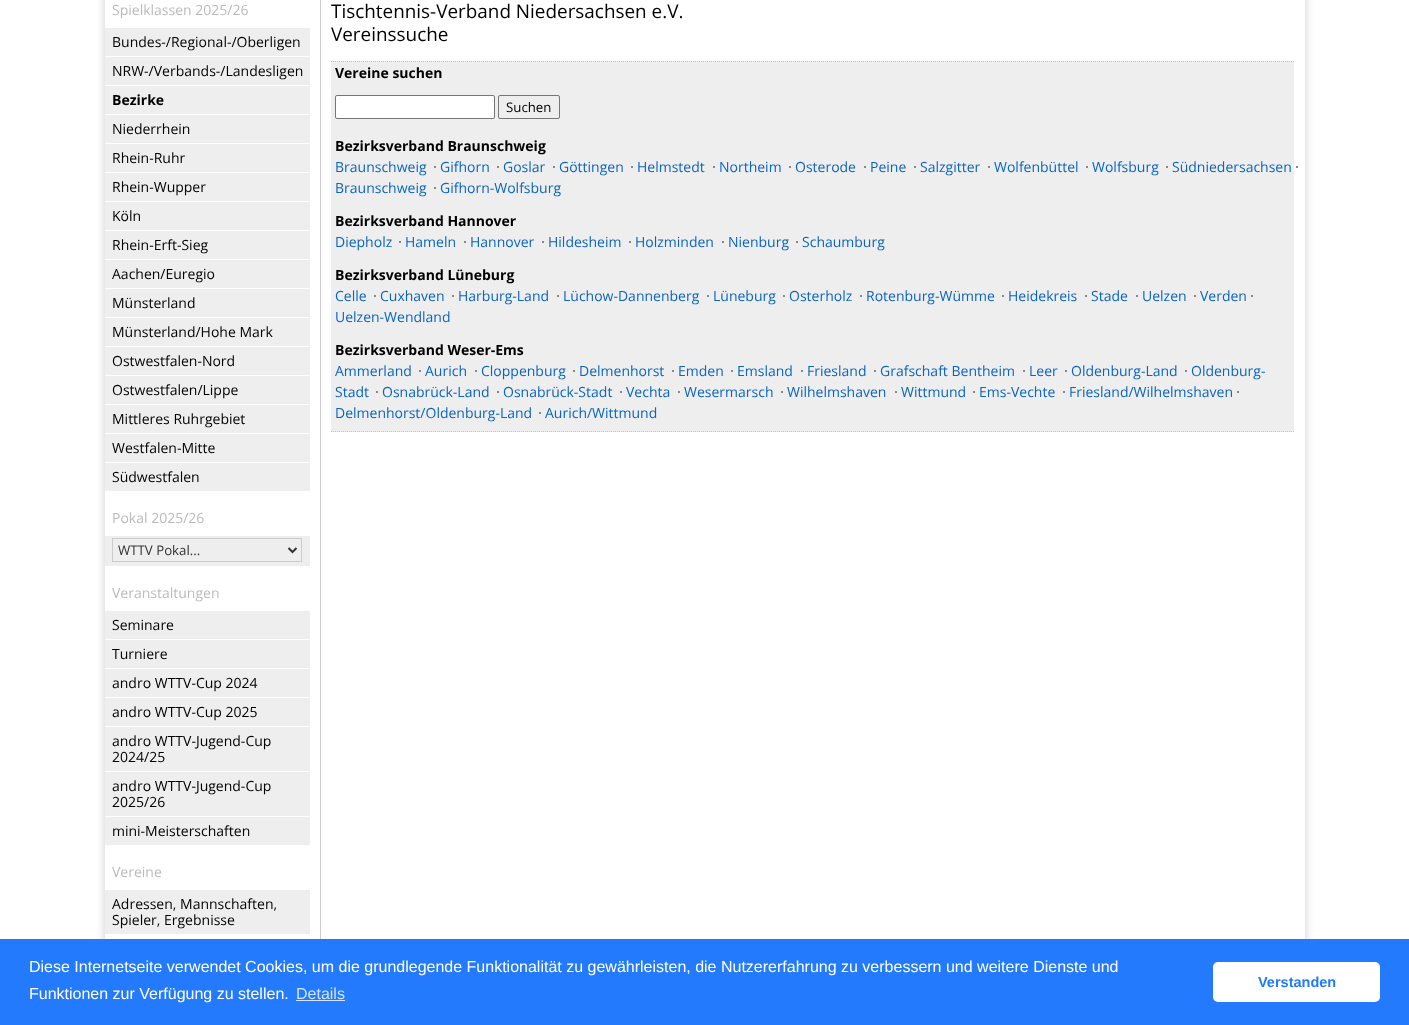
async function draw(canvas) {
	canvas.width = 1409;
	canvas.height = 1025;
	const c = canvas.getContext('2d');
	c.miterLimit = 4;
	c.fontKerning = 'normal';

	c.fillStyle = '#fff';
	c.fillRect(0, 0, 1409, 1025);
	c.save();
	c.beginPath();
	c.moveTo(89, 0);
	c.lineTo(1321, 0);
	c.lineTo(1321, 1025);
	c.lineTo(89, 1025);
	c.closePath();
	c.moveTo(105, -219);
	c.lineTo(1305, -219);
	c.lineTo(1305, 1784);
	c.lineTo(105, 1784);
	c.closePath();
	c.clip('evenodd');
	c.fillStyle = '#00000033';
	c.filter = 'blur(5px)';
	c.beginPath();
	c.rect(105, -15, 1200, 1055);
	c.fill();
	c.filter = 'none';
	c.restore();
	c.fillStyle = '#ccc';
	c.fillRect(320, 0, 1, 939);
	c.font = '14px Open Sans';
	c.fillStyle = '#bbb';
	c.fillText('Spielklassen 2025/26', 112, 15);
	c.fillStyle = '#eee';
	c.fillRect(105, 28, 205, 28);
	c.fillStyle = '#000';
	c.fillText('Bundes-/Regional-/Oberligen', 112, 47);
	c.fillStyle = '#eee';
	c.fillRect(105, 57, 205, 28);
	c.fillStyle = '#000';
	c.fillText('NRW-/Verbands-/Landesligen', 112, 76);
	c.fillStyle = '#eee';
	c.fillRect(105, 86, 205, 28);
	c.font = 'bold 14px Open Sans';
	c.fillStyle = '#000';
	c.fillText('Bezirke', 112, 105);
	c.fillStyle = '#eee';
	c.fillRect(105, 115, 205, 28);
	c.font = '14px Open Sans';
	c.fillStyle = '#000';
	c.fillText('Niederrhein', 112, 134);
	c.fillStyle = '#eee';
	c.fillRect(105, 144, 205, 28);
	c.fillStyle = '#000';
	c.fillText('Rhein-Ruhr', 112, 163);
	c.fillStyle = '#eee';
	c.fillRect(105, 173, 205, 28);
	c.fillStyle = '#000';
	c.fillText('Rhein-Wupper', 112, 192);
	c.fillStyle = '#eee';
	c.fillRect(105, 202, 205, 28);
	c.fillStyle = '#000';
	c.fillText('Köln', 112, 221);
	c.fillStyle = '#eee';
	c.fillRect(105, 231, 205, 28);
	c.fillStyle = '#000';
	c.fillText('Rhein-Erft-Sieg', 112, 250);
	c.fillStyle = '#eee';
	c.fillRect(105, 260, 205, 28);
	c.fillStyle = '#000';
	c.fillText('Aachen/Euregio', 112, 279);
	c.fillStyle = '#eee';
	c.fillRect(105, 289, 205, 28);
	c.fillStyle = '#000';
	c.fillText('Münsterland', 112, 308);
	c.fillStyle = '#eee';
	c.fillRect(105, 318, 205, 28);
	c.fillStyle = '#000';
	c.fillText('Münsterland/Hohe Mark', 112, 337);
	c.fillStyle = '#eee';
	c.fillRect(105, 347, 205, 28);
	c.fillStyle = '#000';
	c.fillText('Ostwestfalen-Nord', 112, 366);
	c.fillStyle = '#eee';
	c.fillRect(105, 376, 205, 28);
	c.fillStyle = '#000';
	c.fillText('Ostwestfalen/Lippe', 112, 395);
	c.fillStyle = '#eee';
	c.fillRect(105, 405, 205, 28);
	c.fillStyle = '#000';
	c.fillText('Mittleres Ruhrgebiet', 112, 424);
	c.fillStyle = '#eee';
	c.fillRect(105, 434, 205, 28);
	c.fillStyle = '#000';
	c.fillText('Westfalen-Mitte', 112, 453);
	c.fillStyle = '#eee';
	c.fillRect(105, 463, 205, 28);
	c.fillStyle = '#000';
	c.fillText('Südwestfalen', 112, 482);
	c.fillStyle = '#bbb';
	c.fillText('Pokal 2025/26', 112, 523);
	c.fillStyle = '#eee';
	c.fillRect(105, 536, 205, 30);
	c.strokeStyle = '#ccc';
	c.strokeRect(112.5, 538.5, 189, 23);
	c.beginPath();
	c.moveTo(288.5, 548);
	c.lineTo(292.5, 552);
	c.lineTo(296.5, 548);
	c.strokeStyle = '#333';
	c.lineWidth = 2;
	c.stroke();
	c.font = '13.25px Open Sans';
	c.fillStyle = '#333';
	c.fillText('WTTV Pokal...', 118, 555);
	c.font = '14px Open Sans';
	c.fillStyle = '#bbb';
	c.fillText('Veranstaltungen', 112, 598);
	c.fillStyle = '#eee';
	c.fillRect(105, 611, 205, 28);
	c.fillStyle = '#000';
	c.fillText('Seminare', 112, 630);
	c.fillStyle = '#eee';
	c.fillRect(105, 640, 205, 28);
	c.fillStyle = '#000';
	c.fillText('Turniere', 112, 659);
	c.fillStyle = '#eee';
	c.fillRect(105, 669, 205, 28);
	c.fillStyle = '#000';
	c.fillText('andro WTTV-Cup 2024', 112, 688);
	c.fillStyle = '#eee';
	c.fillRect(105, 698, 205, 28);
	c.fillStyle = '#000';
	c.fillText('andro WTTV-Cup 2025', 112, 717);
	c.fillStyle = '#eee';
	c.fillRect(105, 727, 205, 44);
	c.fillStyle = '#000';
	c.fillText('andro WTTV-Jugend-Cup', 112, 746);
	c.fillText('2024/25', 112, 762);
	c.fillStyle = '#eee';
	c.fillRect(105, 772, 205, 44);
	c.fillStyle = '#000';
	c.fillText('andro WTTV-Jugend-Cup', 112, 791);
	c.fillText('2025/26', 112, 807);
	c.fillStyle = '#eee';
	c.fillRect(105, 817, 205, 28);
	c.fillStyle = '#000';
	c.fillText('mini-Meisterschaften', 112, 836);
	c.fillStyle = '#bbb';
	c.fillText('Vereine', 112, 877);
	c.fillStyle = '#eee';
	c.fillRect(105, 890, 205, 44);
	c.fillStyle = '#000';
	c.fillText('Adressen, Mannschaften,', 112, 909);
	c.fillText('Spieler, Ergebnisse', 112, 925);
	c.font = '18.9px Open Sans';
	c.fillText('Tischtennis-Verband Niedersachsen e.V.', 331, 18);
	c.fillText('Vereinssuche', 331, 41);
	c.fillStyle = '#eee';
	c.fillRect(331, 61, 963, 371);
	c.beginPath();
	c.moveTo(331, 61.5);
	c.lineTo(1294, 61.5);
	c.strokeStyle = '#c5c4b9';
	c.lineWidth = 1;
	c.setLineDash([1, 1]);
	c.stroke();
	c.beginPath();
	c.moveTo(331, 431.5);
	c.lineTo(1294, 431.5);
	c.stroke();
	c.font = 'bold 14px Open Sans';
	c.fillStyle = '#000';
	c.fillText('Vereine suchen', 335, 78);
	c.fillStyle = '#fff';
	c.beginPath();
	c.roundRect(335.5, 95.5, 159, 23, 1.5);
	c.fill();
	c.strokeStyle = '#767676';
	c.setLineDash([]);
	c.stroke();
	c.beginPath();
	c.roundRect(498.5, 95.5, 61, 23, 1.5);
	c.stroke();
	c.font = '13.25px Open Sans';
	c.fillStyle = '#000';
	c.fillText('Suchen', 506, 112);
	c.font = 'bold 14px Open Sans';
	c.fillText('Bezirksverband Braunschweig', 335, 151);
	c.font = '14px Open Sans';
	c.fillStyle = '#0b65bf';
	c.fillText('Braunschweig', 335, 172);
	c.fillStyle = '#888';
	c.fillRect(434, 166, 2, 2);
	c.fillStyle = '#0b65bf';
	c.fillText('Gifhorn', 440, 172);
	c.fillStyle = '#888';
	c.fillRect(497, 166, 2, 2);
	c.fillStyle = '#0b65bf';
	c.fillText('Goslar', 503, 172);
	c.fillStyle = '#888';
	c.fillRect(553, 166, 2, 2);
	c.fillStyle = '#0b65bf';
	c.fillText('Göttingen', 559, 172);
	c.fillStyle = '#888';
	c.fillRect(631, 166, 2, 2);
	c.fillStyle = '#0b65bf';
	c.fillText('Helmstedt', 637, 172);
	c.fillStyle = '#888';
	c.fillRect(713, 166, 2, 2);
	c.fillStyle = '#0b65bf';
	c.fillText('Northeim', 719, 172);
	c.fillStyle = '#888';
	c.fillRect(789, 166, 2, 2);
	c.fillStyle = '#0b65bf';
	c.fillText('Osterode', 795, 172);
	c.fillStyle = '#888';
	c.fillRect(864, 166, 2, 2);
	c.fillStyle = '#0b65bf';
	c.fillText('Peine', 870, 172);
	c.fillStyle = '#888';
	c.fillRect(914, 166, 2, 2);
	c.fillStyle = '#0b65bf';
	c.fillText('Salzgitter', 920, 172);
	c.fillStyle = '#888';
	c.fillRect(988, 166, 2, 2);
	c.fillStyle = '#0b65bf';
	c.fillText('Wolfenbüttel', 994, 172);
	c.fillStyle = '#888';
	c.fillRect(1086, 166, 2, 2);
	c.fillStyle = '#0b65bf';
	c.fillText('Wolfsburg', 1092, 172);
	c.fillStyle = '#888';
	c.fillRect(1166, 166, 2, 2);
	c.fillStyle = '#0b65bf';
	c.fillText('Südniedersachsen', 1172, 172);
	c.fillStyle = '#888';
	c.fillRect(1296, 166, 2, 2);
	c.fillStyle = '#0b65bf';
	c.fillText('Braunschweig', 335, 193);
	c.fillStyle = '#888';
	c.fillRect(434, 187, 2, 2);
	c.fillStyle = '#0b65bf';
	c.fillText('Gifhorn-Wolfsburg', 440, 193);
	c.font = 'bold 14px Open Sans';
	c.fillStyle = '#000';
	c.fillText('Bezirksverband Hannover', 335, 226);
	c.font = '14px Open Sans';
	c.fillStyle = '#0b65bf';
	c.fillText('Diepholz', 335, 247);
	c.fillStyle = '#888';
	c.fillRect(399, 241, 2, 2);
	c.fillStyle = '#0b65bf';
	c.fillText('Hameln', 405, 247);
	c.fillStyle = '#888';
	c.fillRect(464, 241, 2, 2);
	c.fillStyle = '#0b65bf';
	c.fillText('Hannover', 470, 247);
	c.fillStyle = '#888';
	c.fillRect(542, 241, 2, 2);
	c.fillStyle = '#0b65bf';
	c.fillText('Hildesheim', 548, 247);
	c.fillStyle = '#888';
	c.fillRect(629, 241, 2, 2);
	c.fillStyle = '#0b65bf';
	c.fillText('Holzminden', 635, 247);
	c.fillStyle = '#888';
	c.fillRect(722, 241, 2, 2);
	c.fillStyle = '#0b65bf';
	c.fillText('Nienburg', 728, 247);
	c.fillStyle = '#888';
	c.fillRect(796, 241, 2, 2);
	c.fillStyle = '#0b65bf';
	c.fillText('Schaumburg', 802, 247);
	c.font = 'bold 14px Open Sans';
	c.fillStyle = '#000';
	c.fillText('Bezirksverband Lüneburg', 335, 280);
	c.font = '14px Open Sans';
	c.fillStyle = '#0b65bf';
	c.fillText('Celle', 335, 301);
	c.fillStyle = '#888';
	c.fillRect(374, 295, 2, 2);
	c.fillStyle = '#0b65bf';
	c.fillText('Cuxhaven', 380, 301);
	c.fillStyle = '#888';
	c.fillRect(452, 295, 2, 2);
	c.fillStyle = '#0b65bf';
	c.fillText('Harburg-Land', 458, 301);
	c.fillStyle = '#888';
	c.fillRect(557, 295, 2, 2);
	c.fillStyle = '#0b65bf';
	c.fillText('Lüchow-Dannenberg', 563, 301);
	c.fillStyle = '#888';
	c.fillRect(707, 295, 2, 2);
	c.fillStyle = '#0b65bf';
	c.fillText('Lüneburg', 713, 301);
	c.fillStyle = '#888';
	c.fillRect(783, 295, 2, 2);
	c.fillStyle = '#0b65bf';
	c.fillText('Osterholz', 789, 301);
	c.fillStyle = '#888';
	c.fillRect(860, 295, 2, 2);
	c.fillStyle = '#0b65bf';
	c.fillText('Rotenburg-Wümme', 866, 301);
	c.fillStyle = '#888';
	c.fillRect(1002, 295, 2, 2);
	c.fillStyle = '#0b65bf';
	c.fillText('Heidekreis', 1008, 301);
	c.fillStyle = '#888';
	c.fillRect(1085, 295, 2, 2);
	c.fillStyle = '#0b65bf';
	c.fillText('Stade', 1091, 301);
	c.fillStyle = '#888';
	c.fillRect(1136, 295, 2, 2);
	c.fillStyle = '#0b65bf';
	c.fillText('Uelzen', 1142, 301);
	c.fillStyle = '#888';
	c.fillRect(1194, 295, 2, 2);
	c.fillStyle = '#0b65bf';
	c.fillText('Verden', 1200, 301);
	c.fillStyle = '#888';
	c.fillRect(1251, 295, 2, 2);
	c.fillStyle = '#0b65bf';
	c.fillText('Uelzen-Wendland', 335, 322);
	c.font = 'bold 14px Open Sans';
	c.fillStyle = '#000';
	c.fillText('Bezirksverband Weser-Ems', 335, 355);
	c.font = '14px Open Sans';
	c.fillStyle = '#0b65bf';
	c.fillText('Ammerland', 335, 376);
	c.fillStyle = '#888';
	c.fillRect(419, 370, 2, 2);
	c.fillStyle = '#0b65bf';
	c.fillText('Aurich', 425, 376);
	c.fillStyle = '#888';
	c.fillRect(475, 370, 2, 2);
	c.fillStyle = '#0b65bf';
	c.fillText('Cloppenburg', 481, 376);
	c.fillStyle = '#888';
	c.fillRect(573, 370, 2, 2);
	c.fillStyle = '#0b65bf';
	c.fillText('Delmenhorst', 579, 376);
	c.fillStyle = '#888';
	c.fillRect(672, 370, 2, 2);
	c.fillStyle = '#0b65bf';
	c.fillText('Emden', 678, 376);
	c.fillStyle = '#888';
	c.fillRect(731, 370, 2, 2);
	c.fillStyle = '#0b65bf';
	c.fillText('Emsland', 737, 376);
	c.fillStyle = '#888';
	c.fillRect(801, 370, 2, 2);
	c.fillStyle = '#0b65bf';
	c.fillText('Friesland', 807, 376);
	c.fillStyle = '#888';
	c.fillRect(874, 370, 2, 2);
	c.fillStyle = '#0b65bf';
	c.fillText('Grafschaft Bentheim', 880, 376);
	c.fillStyle = '#888';
	c.fillRect(1023, 370, 2, 2);
	c.fillStyle = '#0b65bf';
	c.fillText('Leer', 1029, 376);
	c.fillStyle = '#888';
	c.fillRect(1065, 370, 2, 2);
	c.fillStyle = '#0b65bf';
	c.fillText('Oldenburg-Land', 1071, 376);
	c.fillStyle = '#888';
	c.fillRect(1185, 370, 2, 2);
	c.fillStyle = '#0b65bf';
	c.fillText('Oldenburg-', 1191, 376);
	c.fillText('Stadt', 335, 397);
	c.fillStyle = '#888';
	c.fillRect(376, 391, 2, 2);
	c.fillStyle = '#0b65bf';
	c.fillText('Osnabrück-Land', 382, 397);
	c.fillStyle = '#888';
	c.fillRect(497, 391, 2, 2);
	c.fillStyle = '#0b65bf';
	c.fillText('Osnabrück-Stadt', 503, 397);
	c.fillStyle = '#888';
	c.fillRect(620, 391, 2, 2);
	c.fillStyle = '#0b65bf';
	c.fillText('Vechta', 626, 397);
	c.fillStyle = '#888';
	c.fillRect(678, 391, 2, 2);
	c.fillStyle = '#0b65bf';
	c.fillText('Wesermarsch', 684, 397);
	c.fillStyle = '#888';
	c.fillRect(781, 391, 2, 2);
	c.fillStyle = '#0b65bf';
	c.fillText('Wilhelmshaven', 787, 397);
	c.fillStyle = '#888';
	c.fillRect(895, 391, 2, 2);
	c.fillStyle = '#0b65bf';
	c.fillText('Wittmund', 901, 397);
	c.fillStyle = '#888';
	c.fillRect(973, 391, 2, 2);
	c.fillStyle = '#0b65bf';
	c.fillText('Ems-Vechte', 979, 397);
	c.fillStyle = '#888';
	c.fillRect(1063, 391, 2, 2);
	c.fillStyle = '#0b65bf';
	c.fillText('Friesland/Wilhelmshaven', 1069, 397);
	c.fillStyle = '#888';
	c.fillRect(1237, 391, 2, 2);
	c.fillStyle = '#0b65bf';
	c.fillText('Delmenhorst/Oldenburg-Land', 335, 418);
	c.fillStyle = '#888';
	c.fillRect(539, 412, 2, 2);
	c.fillStyle = '#0b65bf';
	c.fillText('Aurich/Wittmund', 545, 418);
	c.fillStyle = '#237afc';
	c.fillRect(0, 939, 1409, 86);
	c.font = '16px Liberation Sans';
	c.fillStyle = '#fff';
	c.fillText('Diese Internetseite verwendet Cookies, um die grundlegende Funktionalität zu gewährleisten, die Nutzererfahrung zu verbessern und weitere Dienste und', 29, 972);
	c.fillText('Funktionen zur Verfügung zu stellen.', 29, 999);
	c.fillStyle = '#d3e4fe';
	c.fillText('Details', 296, 999);
	c.fillRect(296, 1000, 49, 1);
	c.fillStyle = '#fff';
	c.beginPath();
	c.roundRect(1213, 962, 167, 40, 5);
	c.fill();
	c.font = 'bold 14.5px Liberation Sans';
	c.fillStyle = '#237afc';
	c.fillText('Verstanden', 1258, 987);
}

draw(document.querySelector('canvas'));
